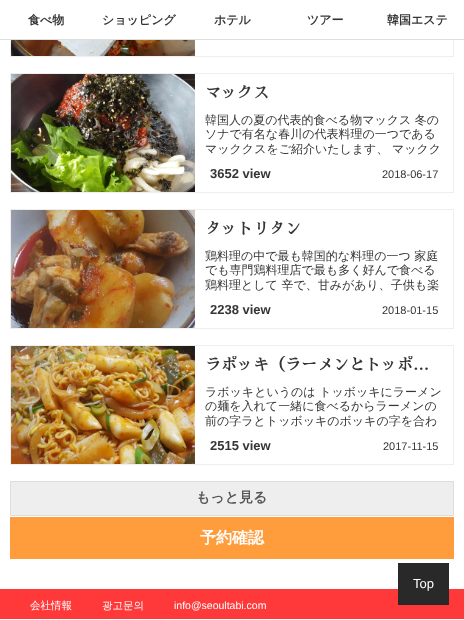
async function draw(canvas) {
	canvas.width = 464;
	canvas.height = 620;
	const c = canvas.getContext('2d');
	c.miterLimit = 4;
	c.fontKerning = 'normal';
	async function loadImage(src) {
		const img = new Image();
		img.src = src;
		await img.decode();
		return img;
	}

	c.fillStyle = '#fff';
	c.fillRect(0, 0, 464, 620);
	c.strokeStyle = '#eee';
	c.strokeRect(10.5, -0.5, 443, 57);
	c.fillRect(10, 0, 444, 39);
	c.fillStyle = '#ddd';
	c.fillRect(0, 39, 464, 1);
	c.font = 'bold 12px WenQuanYi Zen Hei';
	c.fillStyle = '#353535';
	for (const [text, x, y] of [
		['食べ物', 28, 24],
		['ショッピング', 102, 24],
		['ホテル', 214, 24],
		['ツアー', 307, 24],
		['韓国エステ', 387, 24],
	]) {
		c.fillText(text, x, y);
	}
	c.drawImage(await loadImage('img1.png'), 11, 40, 184, 16);
	c.strokeRect(10.5, 73.5, 443, 119);
	c.drawImage(await loadImage('img2.png'), 11, 74, 184, 118);
	c.font = 'bold 16px Sawarabi Mincho';
	c.fillText('マックス', 205, 98);
	c.font = '500 12px WenQuanYi Zen Hei';
	for (const [text, x, y] of [
		['韓国人の夏の代表的食べる物マックス 冬の', 205, 124],
		['ソナで有名な春川の代表料理の一つである', 205, 138],
		['マッククスをご紹介いたします、 マックク', 205, 153],
	]) {
		c.fillText(text, x, y);
	}
	c.font = 'bold 13px Liberation Sans';
	c.fillText('3652 view', 210, 178);
	c.font = '11px Liberation Sans';
	c.fillText('2018-06-17', 382, 178);
	c.strokeRect(10.5, 209.5, 443, 119);
	c.drawImage(await loadImage('img3.png'), 11, 210, 184, 118);
	c.font = 'bold 16px Sawarabi Mincho';
	c.fillText('タットリタン', 205, 234);
	c.font = '500 12px WenQuanYi Zen Hei';
	for (const [text, x, y] of [
		['鶏料理の中で最も韓国的な料理の一つ 家庭', 205, 260],
		['でも専門鶏料理店で最も多く好んで食べる', 205, 274],
		['鶏料理として 辛で、甘みがあり、子供も楽', 205, 289],
	]) {
		c.fillText(text, x, y);
	}
	c.font = 'bold 13px Liberation Sans';
	c.fillText('2238 view', 210, 314);
	c.font = '11px Liberation Sans';
	c.fillText('2018-01-15', 382, 314);
	c.strokeRect(10.5, 345.5, 443, 119);
	c.drawImage(await loadImage('img4.png'), 11, 346, 184, 118);
	c.save();
	c.beginPath();
	c.rect(205, 356, 238, 19);
	c.clip();
	c.font = 'bold 16px Sawarabi Mincho';
	c.fillText('ラポッキ（ラーメンとトッポ…', 205, 370);
	c.restore();
	c.font = '500 12px WenQuanYi Zen Hei';
	for (const [text, x, y] of [
		['ラボッキというのは トッボッキにラーメン', 205, 396],
		['の麺を入れて一緒に食べるからラーメンの', 205, 410],
		['前の字ラとトッボッキのボッキの字を合わ', 205, 425],
	]) {
		c.fillText(text, x, y);
	}
	c.font = 'bold 13px Liberation Sans';
	c.fillText('2515 view', 210, 450);
	c.font = '11px Liberation Sans';
	c.fillText('2017-11-15', 383, 450);
	c.fillStyle = '#eee';
	c.beginPath();
	c.rect(10.5, 481.5, 443, 34);
	c.fill();
	c.strokeStyle = '#ddd';
	c.stroke();
	c.font = 'bold 14px WenQuanYi Zen Hei';
	c.fillStyle = '#555';
	c.fillText('もっと見る', 196, 502);
	c.fillStyle = '#ff9d3d';
	c.fillRect(10, 517, 444, 42);
	c.font = 'bold 16px WenQuanYi Zen Hei';
	c.fillStyle = '#fff';
	c.fillText('予約確認', 200, 543);
	c.fillStyle = '#ff3939';
	c.fillRect(0, 589, 464, 30);
	c.fillStyle = '#292929';
	c.fillRect(398, 563, 51, 42);
	c.font = '13px Liberation Sans';
	c.fillStyle = '#fff';
	c.fillText('Top', 413, 588);
	c.font = '500 10.5px WenQuanYi Zen Hei';
	c.fillText('会社情報', 30, 609);
	c.fillText('광고문의', 102, 609);
	c.font = '10.5px Liberation Sans';
	c.fillText('info@seoultabi.com', 174, 609);
}

draw(document.querySelector('canvas'));
